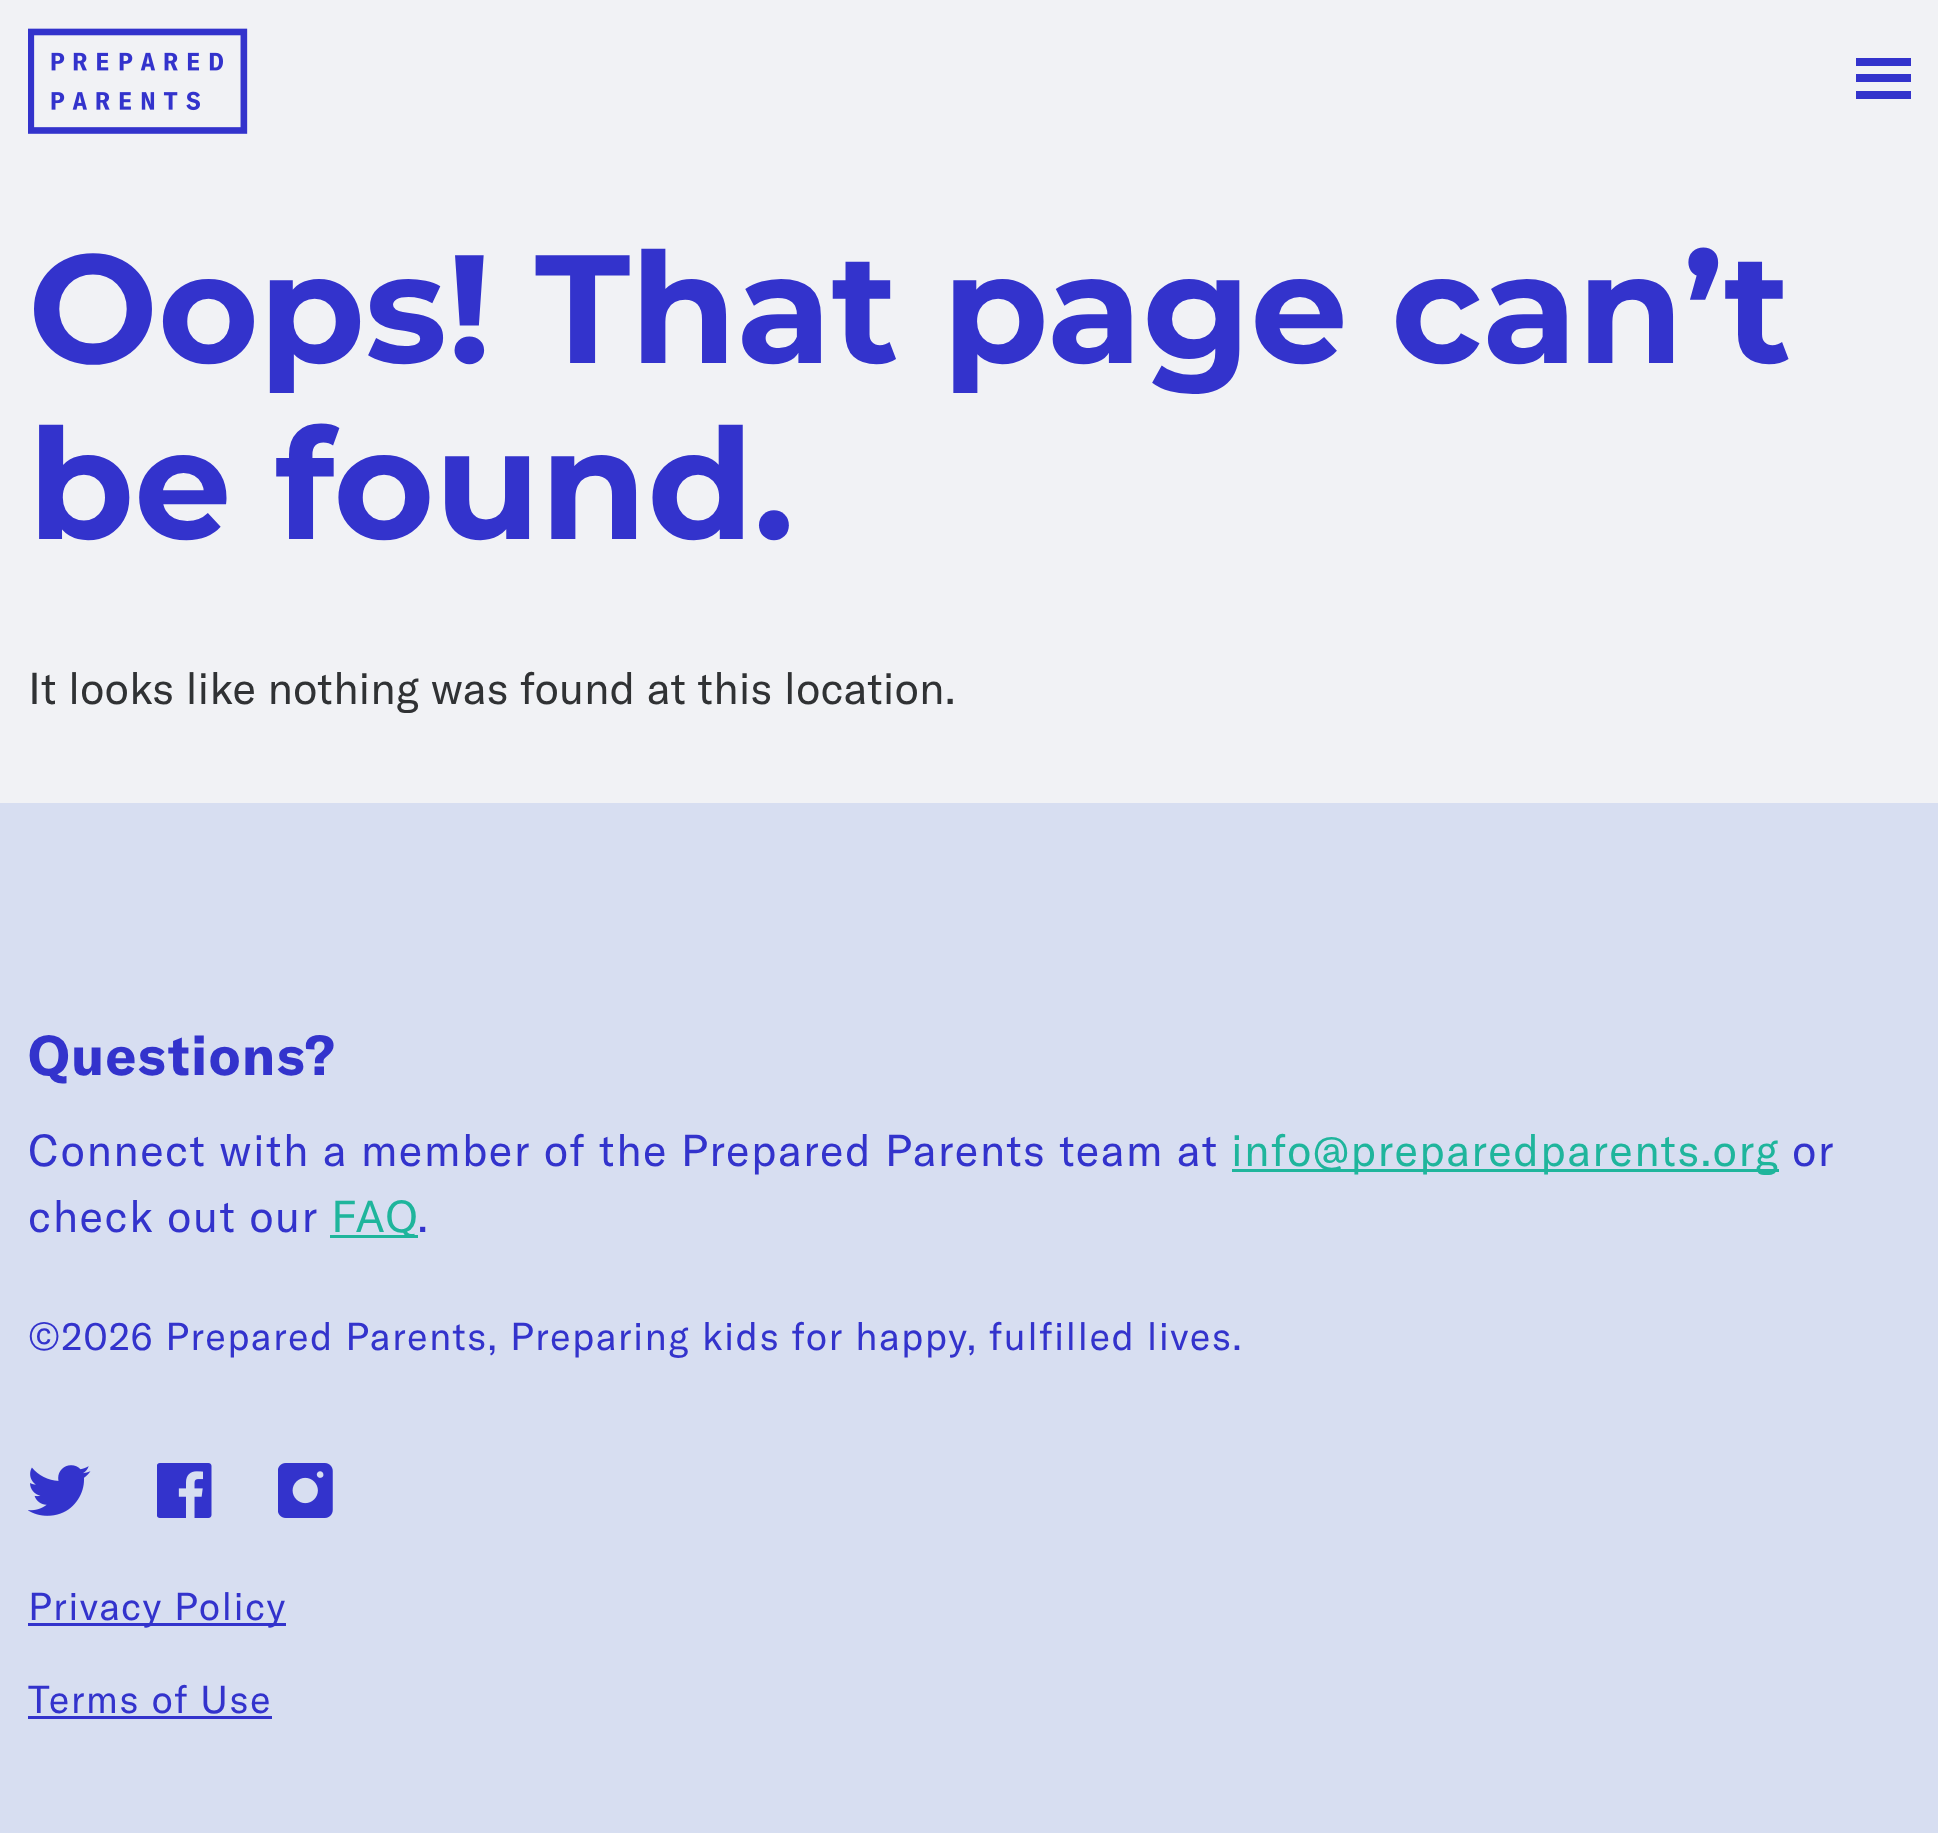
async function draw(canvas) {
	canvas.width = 1938;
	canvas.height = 1833;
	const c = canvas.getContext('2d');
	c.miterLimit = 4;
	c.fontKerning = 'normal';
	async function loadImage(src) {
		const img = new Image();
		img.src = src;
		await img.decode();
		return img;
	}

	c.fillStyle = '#f1f2f5';
	c.fillRect(0, 0, 1938, 1833);
	c.drawImage(await loadImage('img1.png'), 28, 28, 220, 106);
	for (const [x, y, w, h, color] of [
		[1856, 58, 55, 8, '#33c'],
		[1856, 74, 55, 8, '#33c'],
		[1856, 91, 55, 8, '#33c'],
	]) {
		c.fillStyle = color;
		c.fillRect(x, y, w, h);
	}
	c.font = '100 154px Montserrat';
	c.fillText('Oops! That page can’t', 28, 363);
	c.fillText('be found.', 28, 539);
	c.font = '44px GT America';
	c.fillStyle = '#303234';
	c.fillText('It looks like nothing was found at this location.', 28, 704);
	c.fillStyle = '#d7def1';
	c.fillRect(0, 803, 1938, 1030);
	c.letterSpacing = '1.38px';
	c.font = 'bold 55px GT America';
	c.fillStyle = '#33c';
	c.fillText('Questions?', 28, 1075);
	c.font = '44px GT America';
	c.fillText('Connect with a member of the Prepared Parents team at', 28, 1166);
	c.fillStyle = '#1fb59c';
	c.fillRect(1232, 1169, 547, 3);
	c.fillText('info@preparedparents.org', 1231, 1166);
	c.fillStyle = '#33c';
	c.fillText('or', 1792, 1166);
	c.fillText('check out our', 28, 1232);
	c.fillStyle = '#1fb59c';
	c.fillRect(330, 1235, 88, 3);
	c.fillText('FAQ', 331, 1232);
	c.fillStyle = '#33c';
	c.fillText('.', 417, 1232);
	c.font = '38.5px GT America';
	c.fillText('©2026 Prepared Parents, Preparing kids for happy, fulfilled lives.', 28, 1350);
	c.drawImage(await loadImage('img2.png'), 28, 1465, 63, 51);
	c.drawImage(await loadImage('img3.png'), 157, 1463, 55, 55);
	c.drawImage(await loadImage('img4.png'), 278, 1463, 55, 55);
	c.fillRect(28, 1623, 258, 3);
	c.fillText('Privacy Policy', 28, 1620);
	c.fillText('Terms of Use', 28, 1713);
	c.fillRect(28, 1716, 244, 3);
}

draw(document.querySelector('canvas'));
